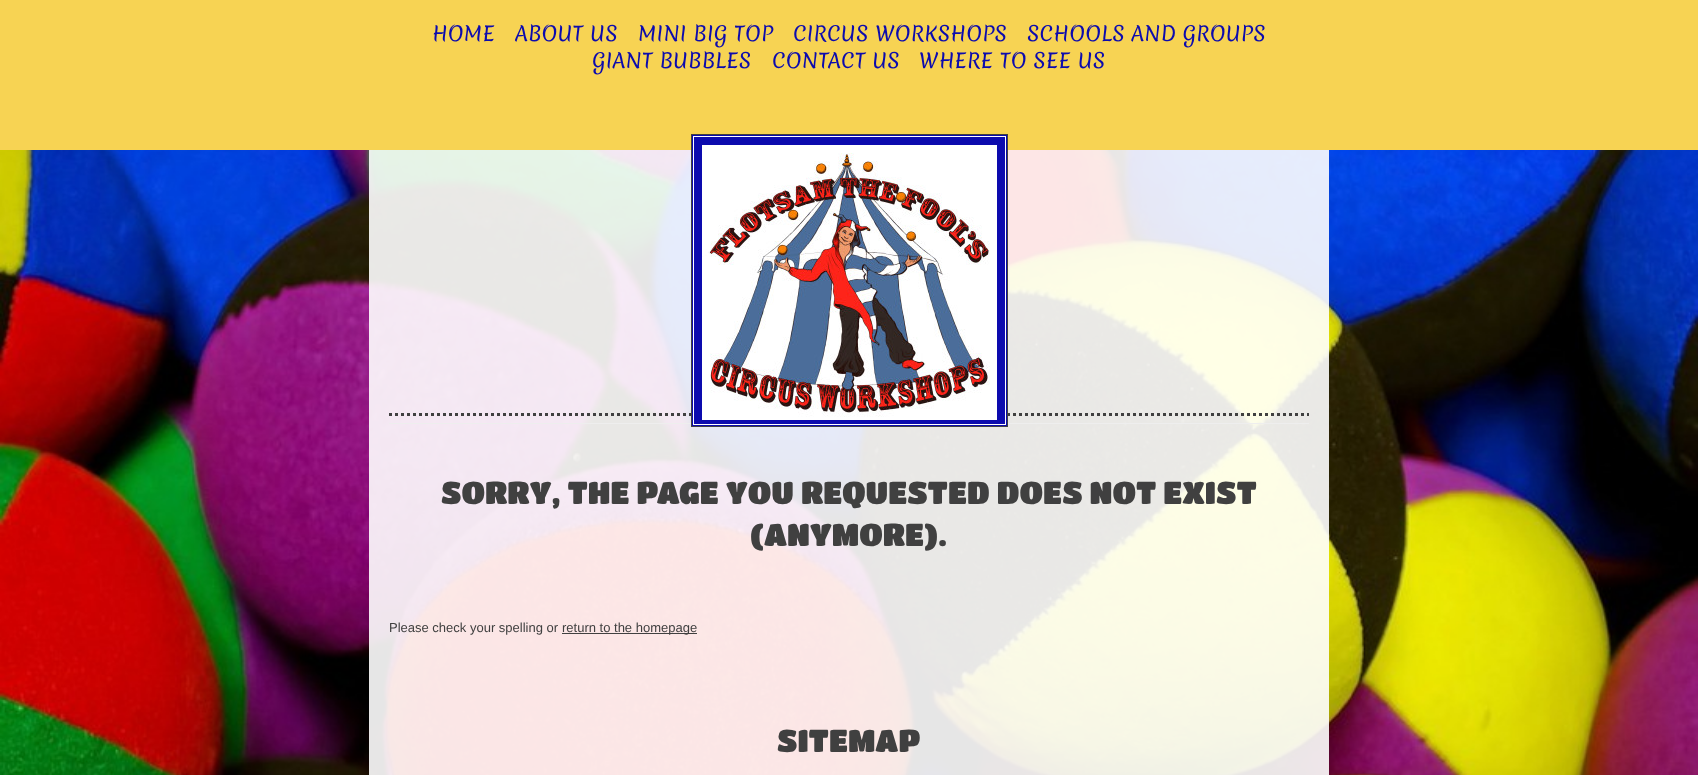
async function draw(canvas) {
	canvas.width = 1698;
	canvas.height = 775;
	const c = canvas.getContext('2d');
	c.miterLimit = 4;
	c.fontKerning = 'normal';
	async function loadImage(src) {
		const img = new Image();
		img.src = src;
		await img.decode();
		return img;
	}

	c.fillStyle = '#fff';
	c.fillRect(0, 0, 1698, 775);
	c.drawImage(await loadImage('img1.png'), 0, 150, 1698, 625);
	c.fillStyle = '#f7d353';
	c.fillRect(0, 0, 1698, 150);
	c.font = '20px Merienda';
	c.fillStyle = '#0c0bae';
	for (const [text, x, y] of [
		['HOME', 432, 41],
		['ABOUT US', 515, 41],
		['MINI BIG TOP', 638, 41],
		['CIRCUS WORKSHOPS', 793, 41],
		['SCHOOLS AND GROUPS', 1027, 41],
		['GIANT BUBBLES', 592, 68],
		['CONTACT US', 772, 68],
		['WHERE TO SEE US', 919, 68],
	]) {
		c.fillText(text, x, y);
	}
	c.fillStyle = '#ffffffe6';
	c.fillRect(369, 150, 960, 625);
	c.beginPath();
	c.moveTo(389, 414.5);
	c.lineTo(1309, 414.5);
	c.strokeStyle = '#404040';
	c.lineWidth = 3;
	c.setLineDash([3, 3]);
	c.stroke();
	c.fillStyle = '#eee';
	c.fillRect(389, 423, 920, 1);
	c.fillStyle = '#0c0bae';
	c.beginPath();
	c.rect(693, 136, 313, 289);
	c.fill();
	c.strokeStyle = '#fff';
	c.lineWidth = 2;
	c.setLineDash([]);
	c.stroke();
	c.strokeStyle = '#0c0bae';
	c.lineWidth = 1;
	c.strokeRect(692.5, 135.5, 314, 290);
	c.strokeStyle = '#404040';
	c.strokeRect(691.5, 134.5, 316, 292);
	c.drawImage(await loadImage('img2.png'), 702, 145, 295, 275);
	c.font = '31.2px Titan One';
	c.fillStyle = '#404040';
	c.fillText('SORRY, THE PAGE YOU REQUESTED DOES NOT EXIST', 441, 504);
	c.fillText('(ANYMORE).', 750, 546);
	c.font = '13px Liberation Sans';
	c.fillText('Please check your spelling or', 389, 632);
	c.fillRect(562, 633, 135, 1);
	c.fillText('return to the homepage', 562, 632);
	c.font = '31.2px Titan One';
	c.fillText('SITEMAP', 777, 752);
}

draw(document.querySelector('canvas'));
